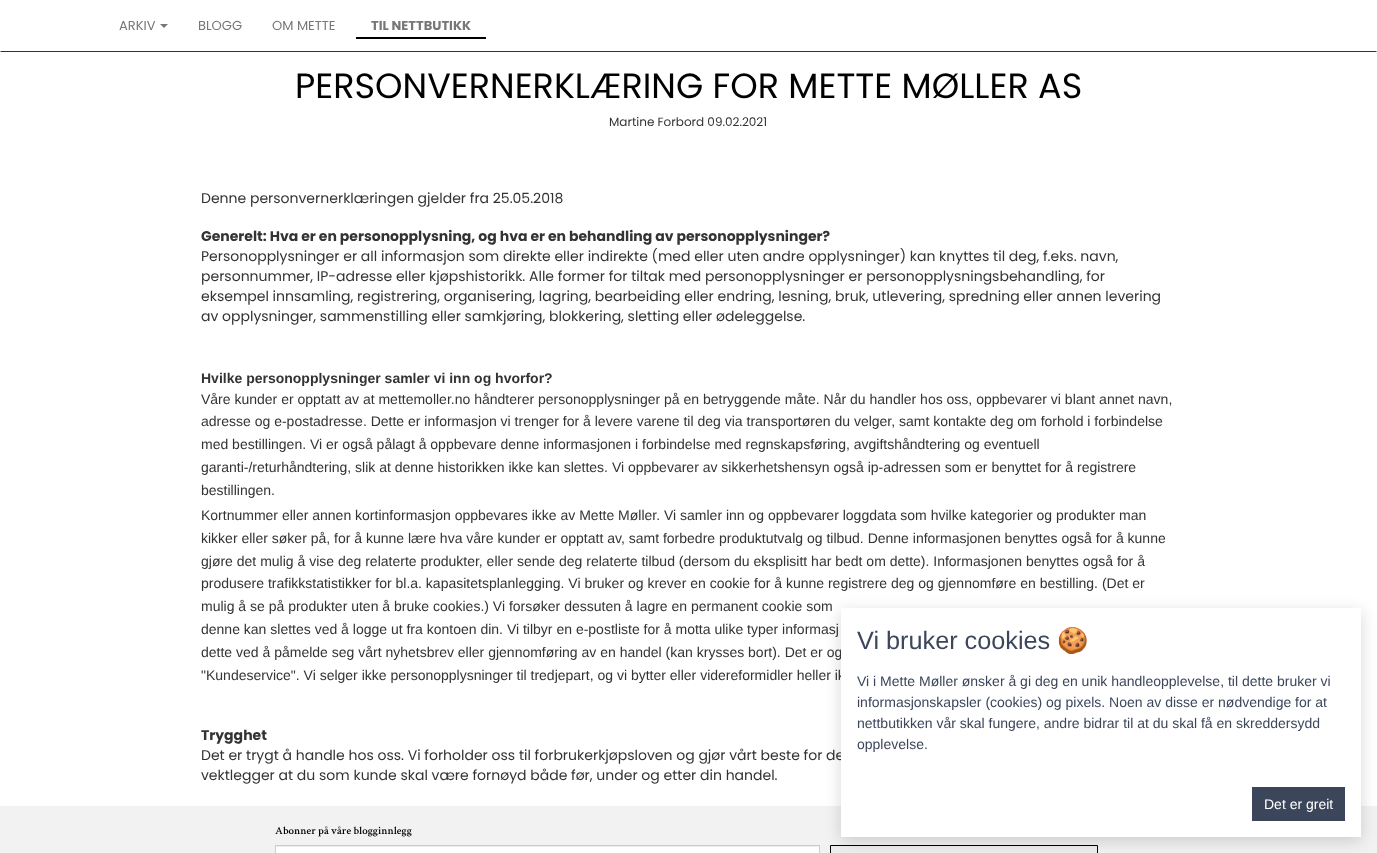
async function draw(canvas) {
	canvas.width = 1377;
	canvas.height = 853;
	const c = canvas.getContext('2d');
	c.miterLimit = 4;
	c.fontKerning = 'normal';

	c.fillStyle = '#fff';
	c.fillRect(0, 0, 1377, 853);
	c.fillStyle = '#333';
	c.beginPath();
	c.moveTo(1377, 52);
	c.lineTo(0, 52);
	c.lineTo(1, 51);
	c.lineTo(1376, 51);
	c.closePath();
	c.fill();
	c.font = '13px Poppins';
	c.fillStyle = '#777';
	c.fillText('ARKIV', 119, 30);
	c.beginPath();
	c.moveTo(160, 24);
	c.lineTo(168, 24);
	c.lineTo(164, 28);
	c.closePath();
	c.fill();
	c.fillText('BLOGG', 198, 30);
	c.fillText('OM METTE', 272, 30);
	c.fillStyle = '#000';
	c.fillRect(356, 37, 130, 2);
	c.font = 'bold 13px Poppins';
	c.fillStyle = '#777';
	c.fillText('TIL NETTBUTIKK', 371, 30);
	c.font = '35px Poppins';
	c.fillStyle = '#000';
	c.fillText('PERSONVERNERKLÆRING FOR METTE MØLLER AS', 295, 98);
	c.font = '12px Poppins';
	c.fillStyle = '#333';
	c.fillText('Martine Forbord 09.02.2021', 609, 126);
	c.font = '14px Poppins';
	c.fillText('Denne personvernerklæringen gjelder fra 25.05.2018', 201, 203);
	c.font = 'bold 14px Poppins';
	c.fillText('Generelt: Hva er en personopplysning, og hva er en behandling av personopplysninger?', 201, 241);
	c.font = '14px Poppins';
	for (const [text, x, y] of [
		['Personopplysninger er all informasjon som direkte eller indirekte (med eller uten andre opplysninger) kan knyttes til deg, f.eks. navn,', 201, 261],
		['personnummer, IP-adresse eller kjøpshistorikk. Alle former for tiltak med personopplysninger er personopplysningsbehandling, for', 201, 281],
		['eksempel innsamling, registrering, organisering, lagring, bearbeiding eller endring, lesning, bruk, utlevering, spredning eller annen levering', 201, 301],
		['av opplysninger, sammenstilling eller samkjøring, blokkering, sletting eller ødeleggelse.', 201, 321],
	]) {
		c.fillText(text, x, y);
	}
	c.font = 'bold 14px Liberation Sans';
	c.fillText('Hvilke personopplysninger samler vi inn og hvorfor?', 201, 383);
	c.font = '14px Liberation Sans';
	for (const [text, x, y] of [
		['Våre kunder er opptatt av at mettemoller.no håndterer personopplysninger på en betryggende måte. Når du handler hos oss, oppbevarer vi blant annet navn,', 201, 404],
		['adresse og e-postadresse. Dette er informasjon vi trenger for å levere varene til deg via transportøren du velger, samt kontakte deg om forhold i forbindelse', 201, 426],
		['med bestillingen. Vi er også pålagt å oppbevare denne informasjonen i forbindelse med regnskapsføring, avgiftshåndtering og eventuell', 201, 449],
		['garanti-/returhåndtering, slik at denne historikken ikke kan slettes. Vi oppbevarer av sikkerhetshensyn også ip-adressen som er benyttet for å registrere', 201, 472],
		['bestillingen.', 201, 495],
		['Kortnummer eller annen kortinformasjon oppbevares ikke av Mette Møller. Vi samler inn og oppbevarer loggdata som hvilke kategorier og produkter man', 201, 520],
		['kikker eller søker på, for å kunne lære hva våre kunder er opptatt av, samt forbedre produktutvalg og tilbud. Denne informasjonen benyttes også for å kunne', 201, 543],
		['gjøre det mulig å vise deg relaterte produkter, eller sende deg relaterte tilbud (dersom du eksplisitt har bedt om dette). Informasjonen benyttes også for å', 201, 566],
		['produsere trafikkstatistikker for bl.a. kapasitetsplanlegging. Vi bruker og krever en cookie for å kunne registrere deg og gjennomføre en bestilling. (Det er', 201, 588],
		['mulig å se på produkter uten å bruke cookies.) Vi forsøker dessuten å lagre en permanent cookie som', 201, 611],
		['denne kan slettes ved å logge ut fra kontoen din. Vi tilbyr en e-postliste for å motta ulike typer informasj', 201, 634],
		['dette ved å påmelde seg vårt nyhetsbrev eller gjennomføring av en handel (kan krysses bort). Det er og', 201, 657],
		['"Kundeservice". Vi selger ikke personopplysninger til tredjepart, og vi bytter eller videreformidler heller ik', 201, 680],
	]) {
		c.fillText(text, x, y);
	}
	c.font = 'bold 14px Poppins';
	c.fillText('Trygghet', 201, 740);
	c.font = '14px Poppins';
	c.fillText('Det er trygt å handle hos oss. Vi forholder oss til forbrukerkjøpsloven og gjør vårt beste for de', 201, 760);
	c.fillText('vektlegger at du som kunde skal være fornøyd både før, under og etter din handel.', 201, 780);
	for (const [x, y, w, h, color] of [
		[0, 806, 1377, 47, '#f2f2f2'],
		[275, 847, 545, 6, '#fff'],
		[276, 846, 543, 1, '#ececec'],
	]) {
		c.fillStyle = color;
		c.fillRect(x, y, w, h);
	}
	c.strokeStyle = '#ccc';
	c.strokeRect(275.5, 845.5, 544, 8);
	c.fillStyle = '#eee';
	c.beginPath();
	c.rect(830.5, 845.5, 267, 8);
	c.fill();
	c.strokeStyle = '#000';
	c.stroke();
	c.fillStyle = '#00000029';
	c.filter = 'blur(8px)';
	c.beginPath();
	c.rect(841, 612, 520, 229);
	c.fill();
	c.filter = 'none';
	c.fillStyle = '#fff';
	c.fillRect(841, 608, 520, 229);
	c.font = '25.25px Liberation Sans';
	c.fillStyle = '#3c465b';
	c.fillText('Vi bruker cookies', 857, 649);
	c.font = '25.25px Noto Color Emoji';
	c.fillText('🍪', 1057, 649);
	c.font = '14px Liberation Sans';
	for (const [text, x, y] of [
		['Vi i Mette Møller ønsker å gi deg en unik handleopplevelse, til dette bruker vi', 857, 686],
		['informasjonskapsler (cookies) og pixels. Noen av disse er nødvendige for at', 857, 707],
		['nettbutikken vår skal fungere, andre bidrar til at du skal få en skreddersydd', 857, 728],
		['opplevelse.', 857, 749],
	]) {
		c.fillText(text, x, y);
	}
	c.fillRect(1252, 787, 93, 34);
	c.fillStyle = '#fff';
	c.fillText('Det er greit', 1264, 809);
	c.font = '600 11px Crimson Text';
	c.fillStyle = '#000';
	c.fillText('Abonner på våre blogginnlegg', 275, 834);
}

draw(document.querySelector('canvas'));
